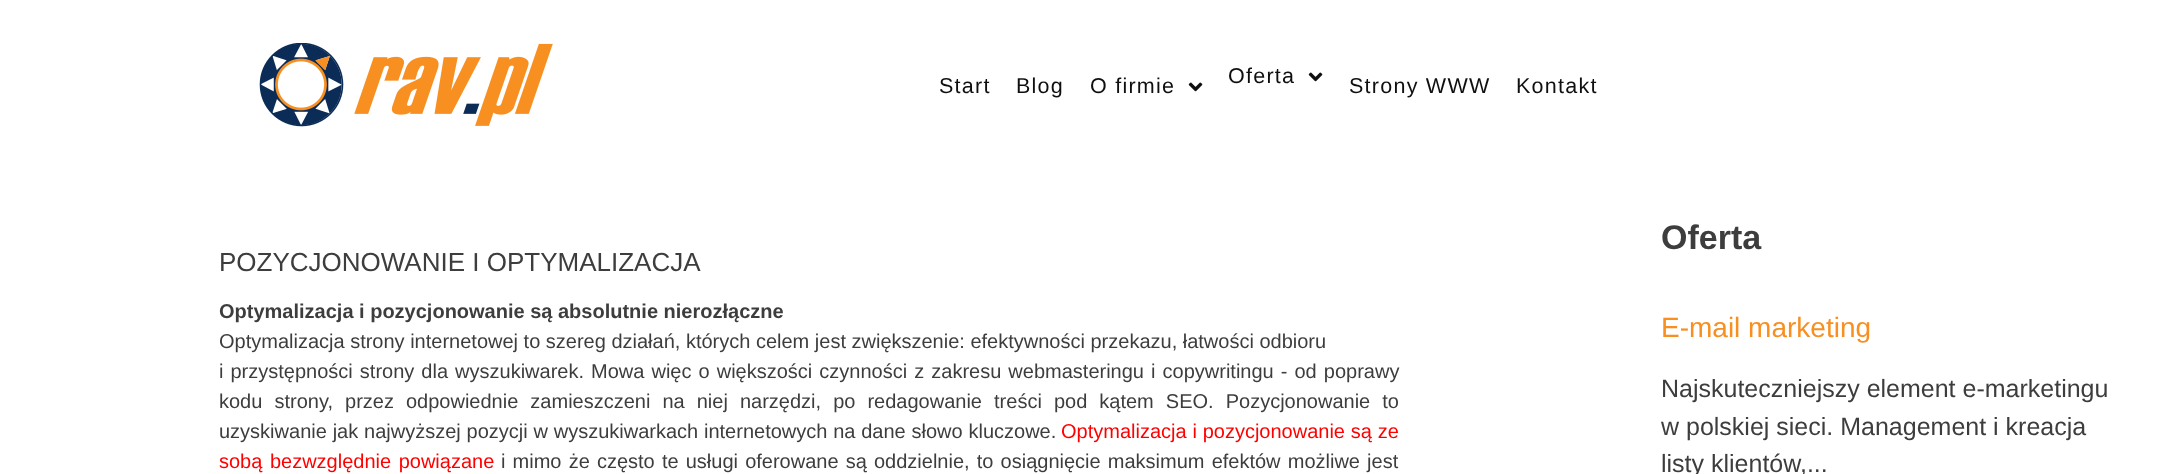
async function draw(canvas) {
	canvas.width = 2157;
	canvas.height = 474;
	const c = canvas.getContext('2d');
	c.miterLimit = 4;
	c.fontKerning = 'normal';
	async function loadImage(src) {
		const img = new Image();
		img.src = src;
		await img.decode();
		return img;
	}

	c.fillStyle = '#fff';
	c.fillRect(0, 0, 2157, 474);
	c.drawImage(await loadImage('img1.png'), 259, 43, 294, 84);
	c.letterSpacing = '1.25px';
	c.font = '21.5px Liberation Sans';
	c.fillStyle = '#0f0f0f';
	for (const [text, x, y] of [
		['Start', 939, 93],
		['Blog', 1016, 93],
		['O firmie', 1090, 93],
	]) {
		c.fillText(text, x, y);
	}
	c.drawImage(await loadImage('img2.png'), 1188, 82, 15, 10);
	c.fillText('Oferta', 1228, 83);
	c.drawImage(await loadImage('img2.png'), 1308, 72, 15, 10);
	c.fillText('Strony WWW', 1349, 93);
	c.fillText('Kontakt', 1516, 93);
	c.letterSpacing = '0px';
	c.font = '26px Liberation Sans';
	c.fillStyle = '#3d3d3d';
	c.fillText('POZYCJONOWANIE I OPTYMALIZACJA', 219, 271);
	c.font = 'bold 20px Liberation Sans';
	c.fillText('Optymalizacja i pozycjonowanie są absolutnie nierozłączne', 219, 318);
	c.font = '20px Liberation Sans';
	c.fillText('Optymalizacja strony internetowej to szereg działań, których celem jest zwiększenie: efektywności przekazu, łatwości odbioru', 219, 348);
	c.wordSpacing = '1.5px';
	c.fillText('i przystępności strony dla wyszukiwarek. Mowa więc o większości czynności z zakresu webmasteringu i copywritingu - od poprawy', 219, 378);
	c.wordSpacing = '6.5px';
	c.fillText('kodu strony, przez odpowiednie zamieszczeni na niej narzędzi, po redagowanie treści pod kątem SEO. Pozycjonowanie to', 219, 408);
	c.wordSpacing = '0.25px';
	c.fillText('uzyskiwanie jak najwyższej pozycji w wyszukiwarkach internetowych na dane słowo kluczowe.', 219, 438);
	c.fillStyle = '#f00';
	c.fillText('Optymalizacja i pozycjonowanie są ze', 1061, 438);
	c.wordSpacing = '2px';
	c.fillText('sobą bezwzględnie powiązane', 219, 468);
	c.wordSpacing = '1.6px';
	c.fillStyle = '#3d3d3d';
	c.fillText('i mimo że często te usługi oferowane są oddzielnie, to osiągnięcie maksimum efektów możliwe jest', 501, 468);
	c.wordSpacing = '0px';
	c.font = 'bold 34px Liberation Sans';
	c.fillText('Oferta', 1661, 249);
	c.font = '28px Liberation Sans';
	c.fillStyle = '#f78f21';
	c.fillText('E-mail marketing', 1661, 337);
	c.font = '25px Liberation Sans';
	c.fillStyle = '#3d3d3d';
	for (const [text, x, y] of [
		['Najskuteczniejszy element e-marketingu', 1661, 397],
		['w polskiej sieci. Management i kreacja', 1661, 435],
		['listy klientów,...', 1661, 472],
	]) {
		c.fillText(text, x, y);
	}
}

draw(document.querySelector('canvas'));
